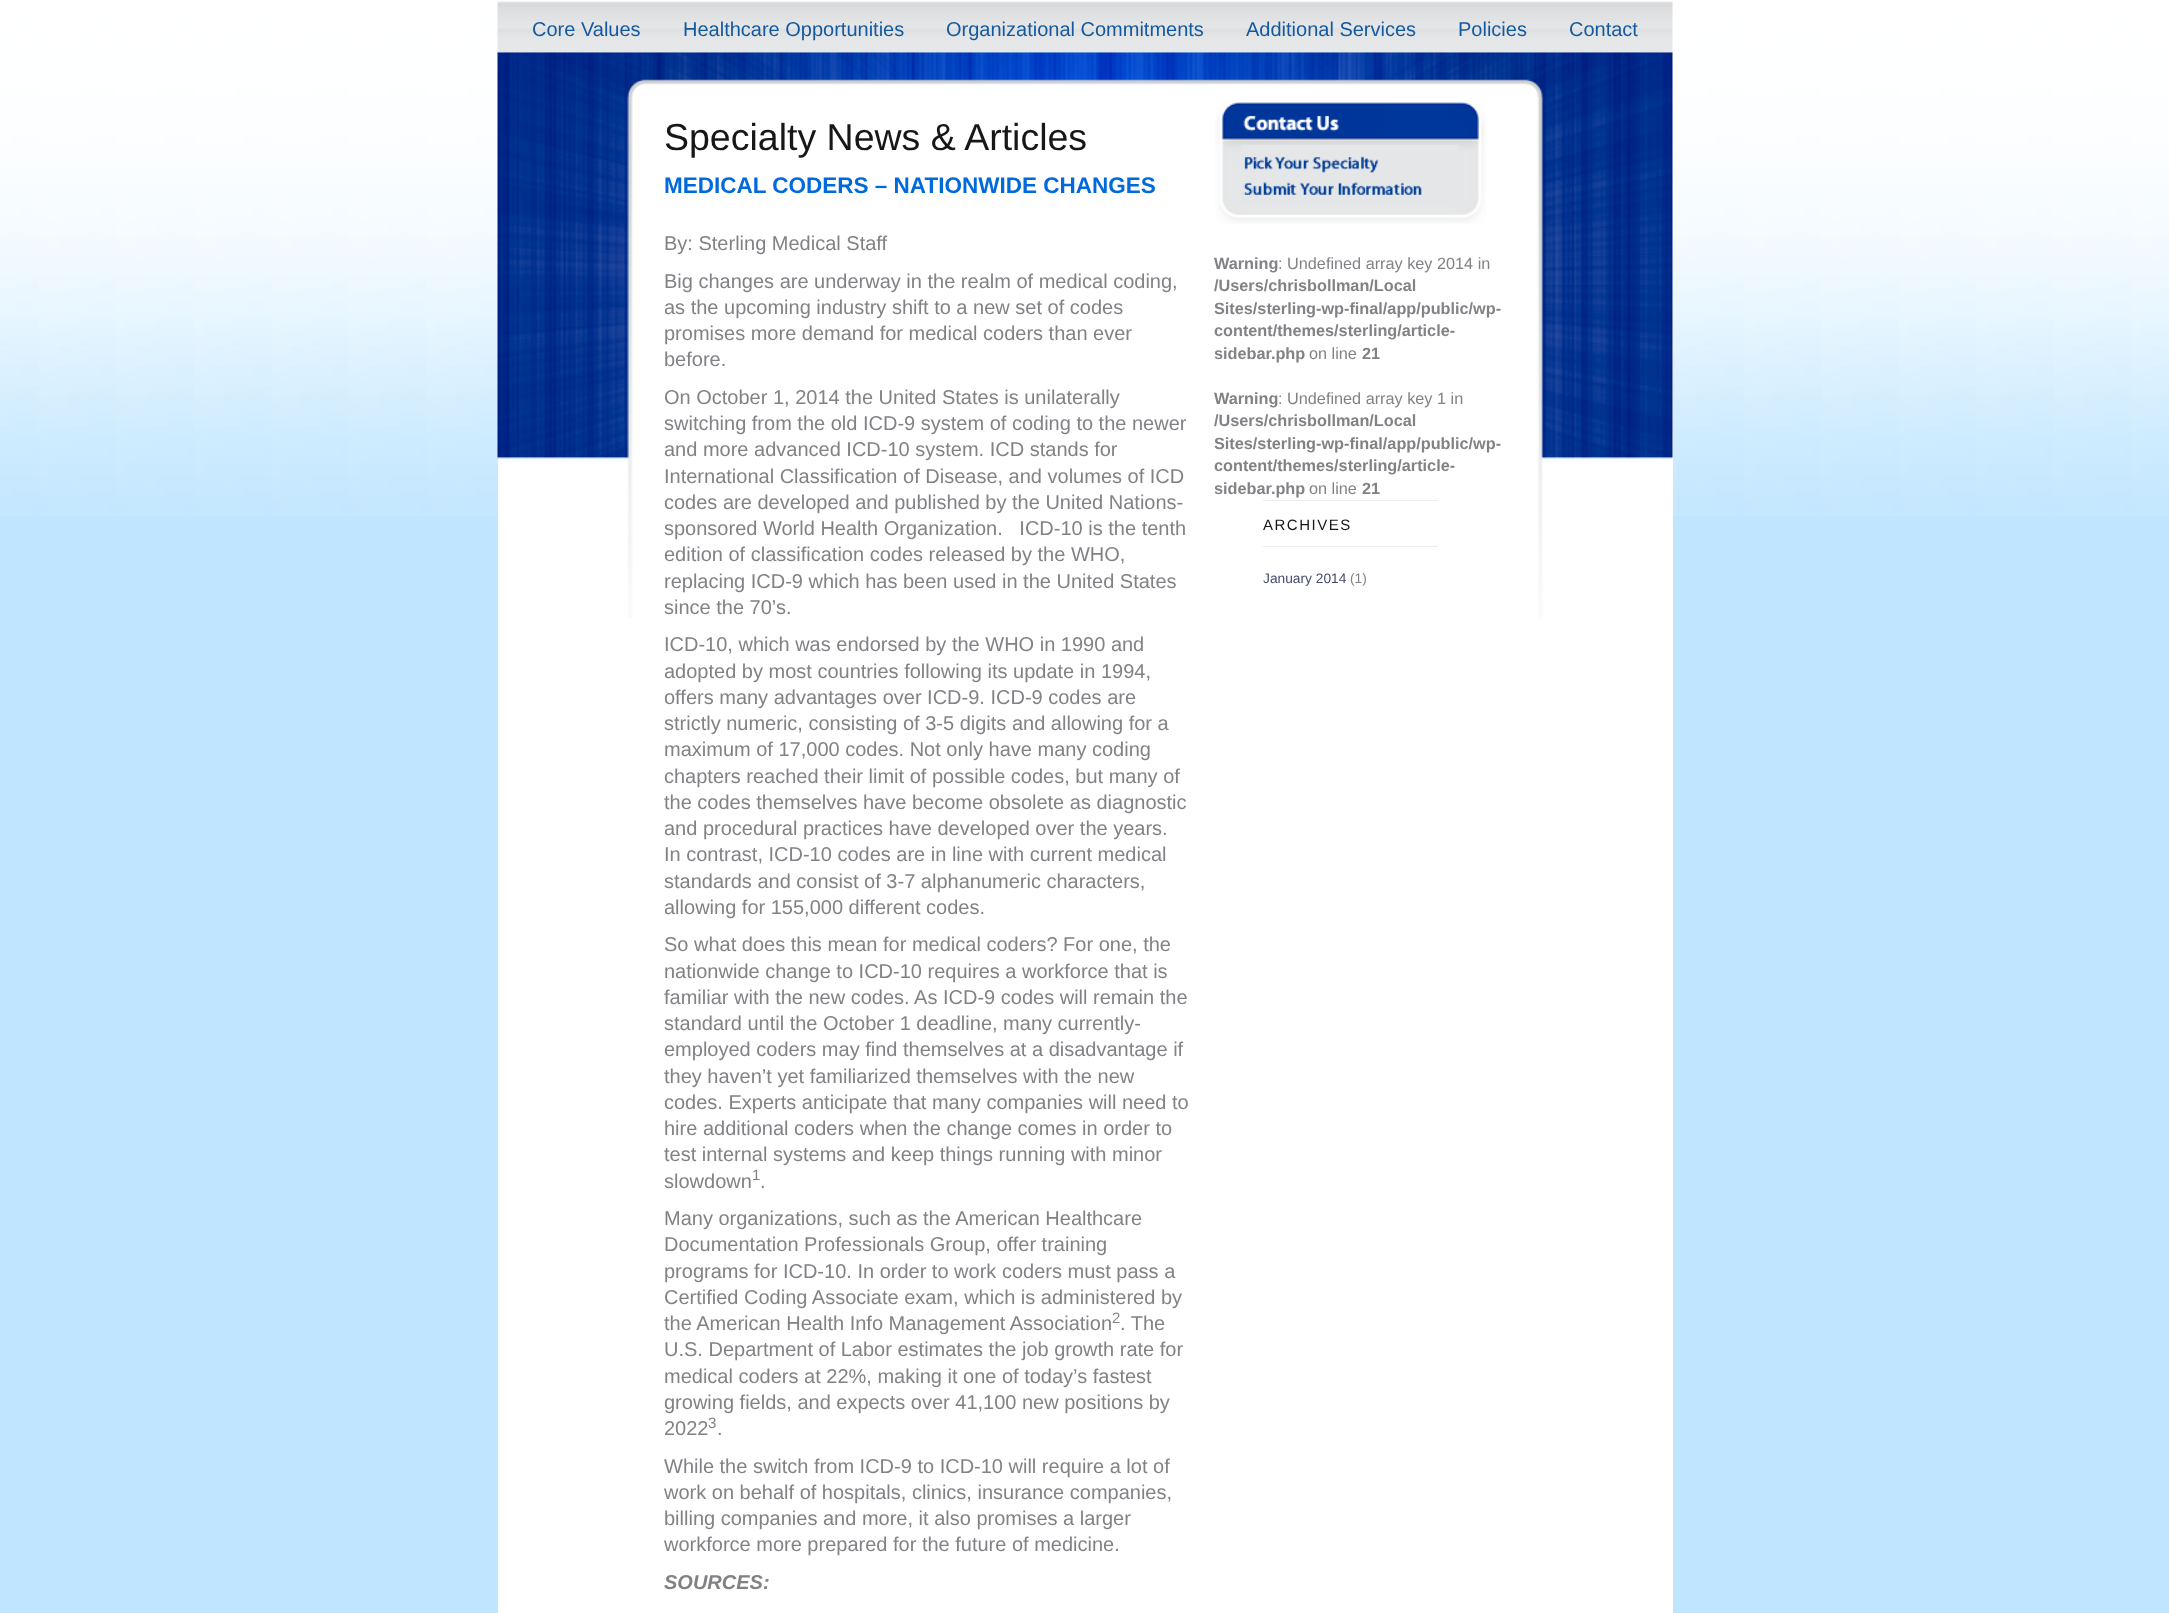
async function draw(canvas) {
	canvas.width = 2169;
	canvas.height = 1613;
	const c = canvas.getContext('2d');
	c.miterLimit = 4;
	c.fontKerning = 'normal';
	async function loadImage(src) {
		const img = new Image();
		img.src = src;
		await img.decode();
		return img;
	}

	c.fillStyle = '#c0e6ff';
	c.fillRect(0, 0, 2169, 1613);
	c.drawImage(await loadImage('img1.png'), 0, 0, 2169, 516);
	c.fillStyle = '#fff';
	c.fillRect(498, 136, 1175, 1477);
	c.drawImage(await loadImage('img3.png'), 497, 52, 1176, 407);
	c.drawImage(await loadImage('img2.png'), 497, 1, 1176, 52);
	c.font = '20px Liberation Sans';
	c.fillStyle = '#13599f';
	for (const [text, x, y] of [
		['Core Values', 532, 36],
		['Healthcare Opportunities', 683, 36],
		['Organizational Commitments', 946, 36],
		['Additional Services', 1246, 36],
		['Policies', 1458, 36],
		['Contact', 1569, 36],
	]) {
		c.fillText(text, x, y);
	}
	c.drawImage(await loadImage('img4.png'), 627, 79, 916, 539);
	c.font = '37.5px Liberation Sans';
	c.fillStyle = '#171717';
	c.fillText('Specialty News & Articles', 664, 150);
	c.font = 'bold 22.5px Liberation Sans';
	c.fillStyle = '#006adc';
	c.fillText('MEDICAL CODERS – NATIONWIDE CHANGES', 664, 193);
	c.font = '20px Liberation Sans';
	c.fillStyle = '#808285';
	for (const [text, x, y] of [
		['By: Sterling Medical Staff', 664, 250],
		['Big changes are underway in the realm of medical coding,', 664, 288],
		['as the upcoming industry shift to a new set of codes', 664, 314],
		['promises more demand for medical coders than ever', 664, 340],
		['before.', 664, 366],
		['On October 1, 2014 the United States is unilaterally', 664, 404],
		['switching from the old ICD-9 system of coding to the newer', 664, 430],
		['and more advanced ICD-10 system. ICD stands for', 664, 456],
		['International Classification of Disease, and volumes of ICD', 664, 483],
		['codes are developed and published by the United Nations-', 664, 509],
		['sponsored World Health Organization.   ICD-10 is the tenth', 664, 535],
		['edition of classification codes released by the WHO,', 664, 561],
		['replacing ICD-9 which has been used in the United States', 664, 588],
		['since the 70’s.', 664, 614],
		['ICD-10, which was endorsed by the WHO in 1990 and', 664, 651],
		['adopted by most countries following its update in 1994,', 664, 678],
		['offers many advantages over ICD-9. ICD-9 codes are', 664, 704],
		['strictly numeric, consisting of 3-5 digits and allowing for a', 664, 730],
		['maximum of 17,000 codes. Not only have many coding', 664, 756],
		['chapters reached their limit of possible codes, but many of', 664, 783],
		['the codes themselves have become obsolete as diagnostic', 664, 809],
		['and procedural practices have developed over the years.', 664, 835],
		['In contrast, ICD-10 codes are in line with current medical', 664, 861],
		['standards and consist of 3-7 alphanumeric characters,', 664, 888],
		['allowing for 155,000 different codes.', 664, 914],
		['So what does this mean for medical coders? For one, the', 664, 951],
		['nationwide change to ICD-10 requires a workforce that is', 664, 978],
		['familiar with the new codes. As ICD-9 codes will remain the', 664, 1004],
		['standard until the October 1 deadline, many currently-', 664, 1030],
		['employed coders may find themselves at a disadvantage if', 664, 1056],
		['they haven’t yet familiarized themselves with the new', 664, 1083],
		['codes. Experts anticipate that many companies will need to', 664, 1109],
		['hire additional coders when the change comes in order to', 664, 1135],
		['test internal systems and keep things running with minor', 664, 1161],
		['slowdown', 664, 1188],
	]) {
		c.fillText(text, x, y);
	}
	c.font = '15px Liberation Sans';
	c.fillText('1', 752, 1180);
	c.font = '20px Liberation Sans';
	for (const [text, x, y] of [
		['.', 760, 1188],
		['Many organizations, such as the American Healthcare', 664, 1225],
		['Documentation Professionals Group, offer training', 664, 1251],
		['programs for ICD-10. In order to work coders must pass a', 664, 1278],
		['Certified Coding Associate exam, which is administered by', 664, 1304],
		['the American Health Info Management Association', 664, 1330],
	]) {
		c.fillText(text, x, y);
	}
	c.font = '15px Liberation Sans';
	c.fillText('2', 1112, 1323);
	c.font = '20px Liberation Sans';
	for (const [text, x, y] of [
		['. The', 1120, 1330],
		['U.S. Department of Labor estimates the job growth rate for', 664, 1356],
		['medical coders at 22%, making it one of today’s fastest', 664, 1383],
		['growing fields, and expects over 41,100 new positions by', 664, 1409],
		['2022', 664, 1435],
	]) {
		c.fillText(text, x, y);
	}
	c.font = '15px Liberation Sans';
	c.fillText('3', 708, 1428);
	c.font = '20px Liberation Sans';
	for (const [text, x, y] of [
		['.', 717, 1435],
		['While the switch from ICD-9 to ICD-10 will require a lot of', 664, 1473],
		['work on behalf of hospitals, clinics, insurance companies,', 664, 1499],
		['billing companies and more, it also promises a larger', 664, 1525],
		['workforce more prepared for the future of medicine.', 664, 1551],
	]) {
		c.fillText(text, x, y);
	}
	c.font = 'italic bold 20px Liberation Sans';
	c.fillText('SOURCES:', 664, 1589);
	c.drawImage(await loadImage('img5.png'), 1215, 102, 271, 122);
	c.font = 'bold 16.25px Liberation Sans';
	c.fillText('Warning', 1214, 269);
	c.font = '16.25px Liberation Sans';
	c.fillText(': Undefined array key 2014 in', 1278, 269);
	c.font = 'bold 16.25px Liberation Sans';
	for (const [text, x, y] of [
		['/Users/chrisbollman/Local', 1214, 291],
		['Sites/sterling-wp-final/app/public/wp-', 1214, 314],
		['content/themes/sterling/article-', 1214, 336],
		['sidebar.php', 1214, 359],
	]) {
		c.fillText(text, x, y);
	}
	c.font = '16.25px Liberation Sans';
	c.fillText('on line', 1309, 359);
	c.font = 'bold 16.25px Liberation Sans';
	c.fillText('21', 1362, 359);
	c.fillText('Warning', 1214, 404);
	c.font = '16.25px Liberation Sans';
	c.fillText(': Undefined array key 1 in', 1278, 404);
	c.font = 'bold 16.25px Liberation Sans';
	for (const [text, x, y] of [
		['/Users/chrisbollman/Local', 1214, 426],
		['Sites/sterling-wp-final/app/public/wp-', 1214, 449],
		['content/themes/sterling/article-', 1214, 471],
		['sidebar.php', 1214, 494],
	]) {
		c.fillText(text, x, y);
	}
	c.font = '16.25px Liberation Sans';
	c.fillText('on line', 1309, 494);
	c.font = 'bold 16.25px Liberation Sans';
	c.fillText('21', 1362, 494);
	c.fillStyle = '#eee';
	c.fillRect(1263, 500, 175, 1);
	c.fillRect(1263, 546, 175, 1);
	c.letterSpacing = '1.5px';
	c.font = '15px Liberation Sans';
	c.fillStyle = '#171717';
	c.fillText('ARCHIVES', 1263, 530);
	c.letterSpacing = '0px';
	c.font = '13.75px Liberation Sans';
	c.fillStyle = '#434c6d';
	c.fillText('January 2014', 1263, 583);
	c.fillStyle = '#808285';
	c.fillText('(1)', 1350, 583);
}

draw(document.querySelector('canvas'));
